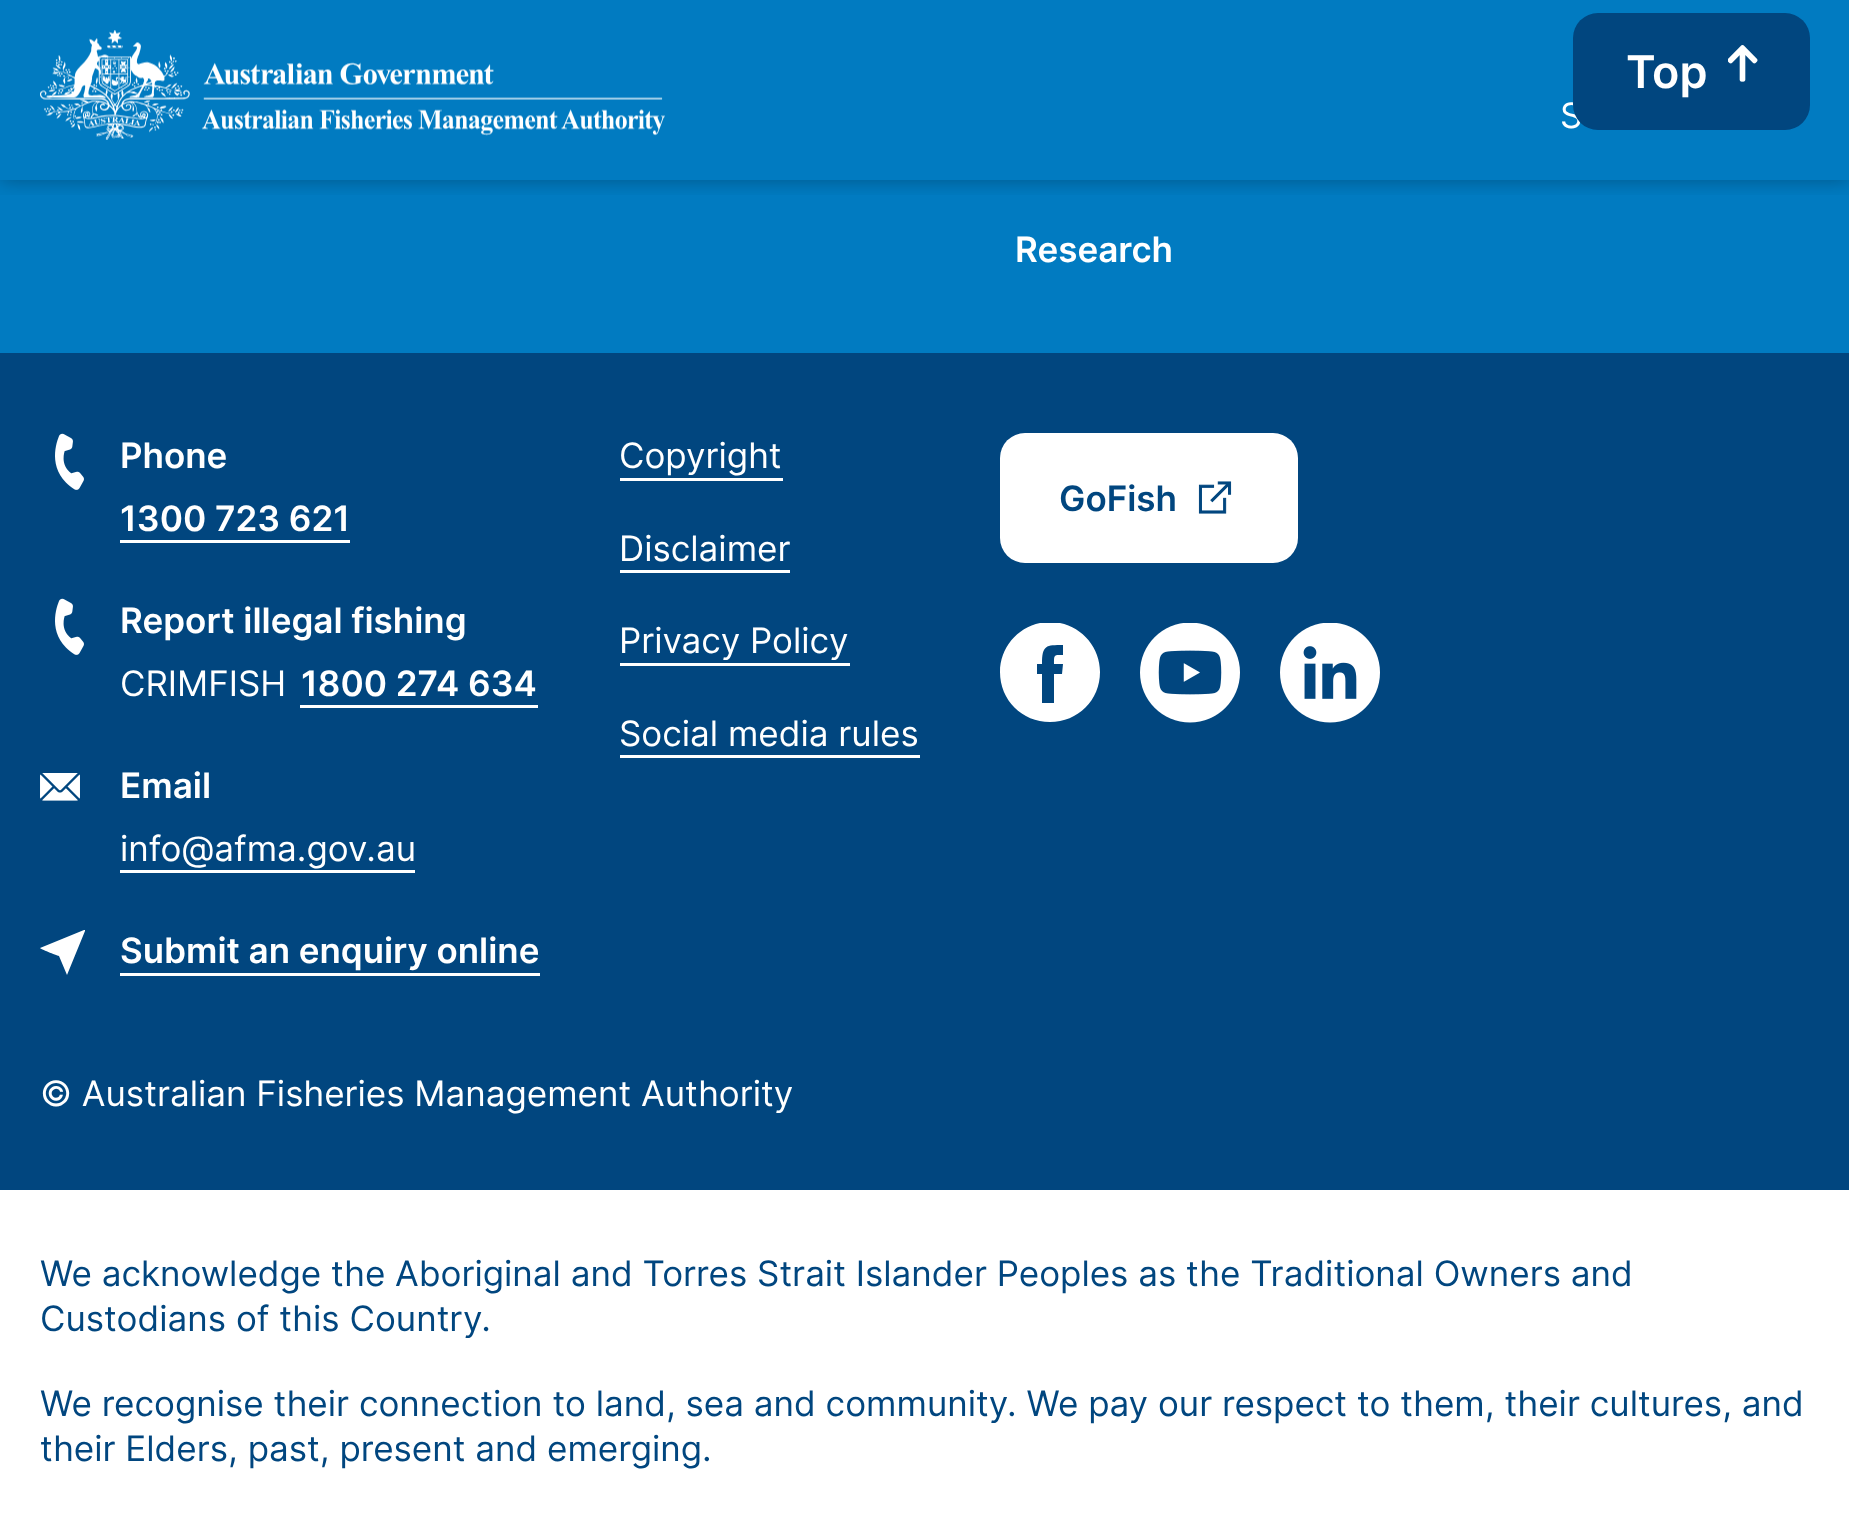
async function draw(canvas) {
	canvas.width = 1849;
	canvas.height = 1530;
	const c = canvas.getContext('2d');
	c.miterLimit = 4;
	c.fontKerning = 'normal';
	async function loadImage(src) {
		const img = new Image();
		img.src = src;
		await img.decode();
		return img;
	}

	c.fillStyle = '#fff';
	c.fillRect(0, 0, 1849, 1530);
	c.fillStyle = '#017bc1';
	c.fillRect(0, 0, 1849, 353);
	c.save();
	c.beginPath();
	c.rect(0, 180, 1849, 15);
	c.clip();
	c.fillStyle = '#0000004d';
	c.filter = 'blur(10px)';
	c.beginPath();
	c.rect(0, 0, 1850, 180);
	c.fill();
	c.filter = 'none';
	c.restore();
	c.font = '35px Inter';
	c.fillStyle = '#fff';
	c.fillText('S', 1560, 128);
	c.fillStyle = '#01467f';
	c.beginPath();
	c.roundRect(1573, 13, 237, 117, 25);
	c.fill();
	c.font = '600 45px Inter';
	c.fillStyle = '#fff';
	c.fillText('Top', 1626, 88);
	c.drawImage(await loadImage('img1.png'), 1728, 45, 30, 37);
	c.drawImage(await loadImage('img2.png'), 40, 30, 625, 110);
	c.font = '600 35px Inter';
	c.fillText('Research', 1015, 262);
	c.fillStyle = '#01467f';
	c.fillRect(0, 353, 1849, 837);
	c.font = '35px Inter';
	c.fillStyle = '#fff';
	c.fillText('© Australian Fisheries Management Authority', 40, 1106);
	c.drawImage(await loadImage('img3.png'), 55, 433, 29, 57);
	c.font = '600 35px Inter';
	c.fillText('Phone', 120, 468);
	c.fillText('1300 723 621', 120, 531);
	c.fillRect(120, 540, 230, 3);
	c.drawImage(await loadImage('img3.png'), 55, 598, 29, 57);
	c.fillText('Report illegal fishing', 120, 633);
	c.font = '35px Inter';
	c.fillText('CRIMFISH', 120, 696);
	c.font = '600 35px Inter';
	c.fillText('1800 274 634', 301, 696);
	c.fillRect(300, 705, 238, 3);
	c.drawImage(await loadImage('img4.png'), 40, 773, 40, 28);
	c.fillText('Email', 120, 798);
	c.font = '35px Inter';
	c.fillText('info@afma.gov.au', 120, 861);
	c.fillRect(120, 870, 295, 3);
	c.beginPath();
	c.moveTo(85, 930);
	c.lineTo(84, 930);
	c.lineTo(40, 948);
	c.bezierCurveTo(40, 949, 56, 955, 59, 956);
	c.lineTo(67, 975);
	c.lineTo(85, 931);
	c.closePath();
	c.fill();
	c.font = '600 35px Inter';
	c.fillText('Submit an enquiry online', 120, 963);
	c.fillRect(120, 973, 420, 3);
	c.font = '35px Inter';
	c.fillText('Copyright', 619, 468);
	c.fillRect(620, 478, 163, 3);
	c.fillText('Disclaimer', 619, 561);
	c.fillRect(620, 570, 170, 3);
	c.fillText('Privacy Policy', 619, 653);
	c.fillRect(620, 663, 230, 3);
	c.fillText('Social media rules', 619, 746);
	c.fillRect(620, 755, 300, 3);
	c.beginPath();
	c.roundRect(1000, 433, 298, 130, 25);
	c.fill();
	c.font = '600 35px Inter';
	c.fillStyle = '#01467f';
	c.fillText('GoFish', 1059, 511);
	c.drawImage(await loadImage('img5.png'), 1198, 481, 34, 33);
	c.save();
	c.beginPath();
	c.rect(1000, 623, 100, 100);
	c.clip();
	c.fillStyle = '#fff';
	c.beginPath();
	c.moveTo(1050, 622);
	c.bezierCurveTo(1022, 622, 1000, 645, 1000, 672);
	c.bezierCurveTo(1000, 700, 1022, 722, 1050, 722);
	c.bezierCurveTo(1078, 722, 1100, 700, 1100, 672);
	c.bezierCurveTo(1100, 645, 1078, 622, 1050, 622);
	c.closePath();
	c.moveTo(1062, 674);
	c.lineTo(1054, 674);
	c.lineTo(1054, 703);
	c.lineTo(1042, 703);
	c.lineTo(1042, 674);
	c.lineTo(1037, 674);
	c.lineTo(1037, 664);
	c.lineTo(1042, 664);
	c.bezierCurveTo(1042, 645, 1046, 645, 1063, 645);
	c.lineTo(1063, 655);
	c.bezierCurveTo(1054, 655, 1054, 654, 1054, 664);
	c.lineTo(1063, 664);
	c.closePath();
	c.fill();
	c.restore();
	c.drawImage(await loadImage('img6.png'), 1140, 623, 100, 100);
	c.drawImage(await loadImage('img7.png'), 1280, 623, 100, 100);
	c.font = '35px Inter';
	for (const [text, x, y] of [
		['We acknowledge the Aboriginal and Torres Strait Islander Peoples as the Traditional Owners and', 40, 1286],
		['Custodians of this Country.', 40, 1331],
		['We recognise their connection to land, sea and community. We pay our respect to them, their cultures, and', 40, 1416],
		['their Elders, past, present and emerging.', 40, 1461],
	]) {
		c.fillText(text, x, y);
	}
}

draw(document.querySelector('canvas'));
